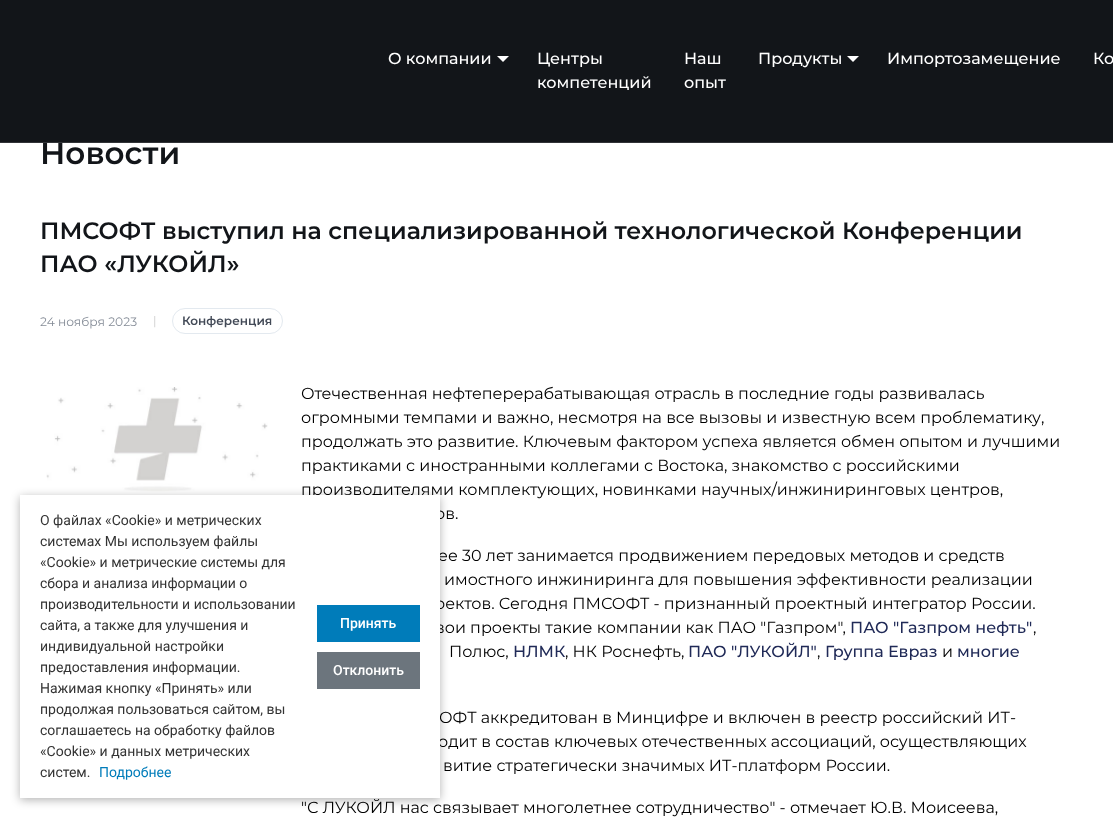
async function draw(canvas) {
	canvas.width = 1113;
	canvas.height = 818;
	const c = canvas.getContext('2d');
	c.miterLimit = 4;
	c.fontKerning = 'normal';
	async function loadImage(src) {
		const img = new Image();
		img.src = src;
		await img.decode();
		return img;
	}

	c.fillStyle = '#fff';
	c.fillRect(0, 0, 1113, 818);
	c.fillStyle = '#121519';
	c.fillRect(0, 0, 1113, 142);
	c.font = '600 31px Montserrat';
	c.fillText('Новости', 40, 164);
	c.fillStyle = '#313337';
	c.fillRect(0, 142, 1113, 1);
	c.font = '500 16px Montserrat';
	c.fillStyle = '#fff';
	c.fillText('О компании', 388, 64);
	c.beginPath();
	c.moveTo(497, 56);
	c.lineTo(509, 56);
	c.lineTo(503, 62);
	c.closePath();
	c.fill();
	for (const [text, x, y] of [
		['Центры', 537, 64],
		['компетенций', 537, 88],
		['Наш', 684, 64],
		['опыт', 684, 88],
		['Продукты', 758, 64],
	]) {
		c.fillText(text, x, y);
	}
	c.beginPath();
	c.moveTo(847, 56);
	c.lineTo(859, 56);
	c.lineTo(853, 62);
	c.closePath();
	c.fill();
	c.fillText('Импортозамещение', 887, 64);
	c.fillText('Ко', 1093, 64);
	c.font = '600 23.75px Montserrat';
	c.fillStyle = '#121519';
	c.fillText('ПМСОФТ выступил на специализированной технологической Конференции', 40, 239);
	c.fillText('ПАО «ЛУКОЙЛ»', 40, 272);
	c.font = '12.25px Montserrat';
	c.fillStyle = '#858c97';
	c.fillText('24 ноября 2023', 40, 326);
	c.font = '12px Montserrat';
	c.fillStyle = '#ccc';
	c.fillText('|', 153, 325);
	c.beginPath();
	c.roundRect(172.5, 308.5, 110, 25, 12.5);
	c.strokeStyle = '#e3e9ef';
	c.stroke();
	c.font = '600 12px Montserrat';
	c.fillStyle = '#434a57';
	c.fillText('Конференция', 182, 325);
	c.drawImage(await loadImage('img1.png'), 46, 387, 222, 105);
	c.font = '16px Montserrat';
	c.fillStyle = '#000';
	for (const [text, x, y] of [
		['Отечественная нефтеперерабатывающая отрасль в последние годы развивалась', 301, 399],
		['огромными темпами и важно, несмотря на все вызовы и известную всем проблематику,', 301, 423],
		['продолжать это развитие. Ключевым фактором успеха является обмен опытом и лучшими', 301, 447],
		['практиками с иностранными коллегами с Востока, знакомство с российскими', 301, 471],
		['производителями комплектующих, новинками научных/инжиниринговых центров,', 301, 495],
		['ов.', 435, 519],
		['ее 30 лет занимается продвижением передовых методов и средств', 438, 561],
		['имостного инжиниринга для повышения эффективности реализации', 444, 585],
		['оектов. Сегодня ПМСОФТ - признанный проектный интегратор России.', 435, 609],
		['вои проекты такие компании как ПАО "Газпром",', 435, 633],
	]) {
		c.fillText(text, x, y);
	}
	c.font = '500 16px Montserrat';
	c.fillStyle = '#202a57';
	c.fillText('ПАО "Газпром нефть"', 850, 633);
	c.font = '16px Montserrat';
	c.fillStyle = '#000';
	c.fillText(',', 1033, 633);
	c.fillText('Полюс,', 449, 657);
	c.font = '500 16px Montserrat';
	c.fillStyle = '#202a57';
	c.fillText('НЛМК', 513, 657);
	c.font = '16px Montserrat';
	c.fillStyle = '#000';
	c.fillText(', НК Роснефть,', 565, 657);
	c.font = '500 16px Montserrat';
	c.fillStyle = '#202a57';
	c.fillText('ПАО "ЛУКОЙЛ"', 688, 657);
	c.font = '16px Montserrat';
	c.fillStyle = '#000';
	c.fillText(',', 817, 657);
	c.font = '500 16px Montserrat';
	c.fillStyle = '#202a57';
	c.fillText('Группа Евраз', 825, 657);
	c.font = '16px Montserrat';
	c.fillStyle = '#000';
	c.fillText('и', 942, 657);
	c.font = '500 16px Montserrat';
	c.fillStyle = '#202a57';
	c.fillText('многие', 957, 657);
	c.font = '16px Montserrat';
	c.fillStyle = '#000';
	for (const [text, x, y] of [
		['ОФТ аккредитован в Минцифре и включен в реестр российский ИТ-', 439, 723],
		['одит в состав ключевых отечественных ассоциаций, осуществляющих', 438, 747],
		['витие стратегически значимых ИТ-платформ России.', 443, 771],
		['"С ЛУКОЙЛ нас связывает многолетнее сотрудничество" - отмечает Ю.В. Моисеева,', 301, 813],
	]) {
		c.fillText(text, x, y);
	}
	c.fillStyle = '#0000004d';
	c.filter = 'blur(5px)';
	c.beginPath();
	c.rect(20, 497, 420, 303);
	c.fill();
	c.filter = 'none';
	c.fillStyle = '#fff';
	c.fillRect(20, 495, 420, 303);
	c.font = '14px Roboto';
	c.fillStyle = '#333';
	for (const [text, x, y] of [
		['О файлах «Cookie» и метрических', 40, 525],
		['системах Мы используем файлы', 40, 546],
		['«Cookie» и метрические системы для', 40, 567],
		['сбора и анализа информации о', 40, 588],
		['производительности и использовании', 40, 609],
		['сайта, а также для улучшения и', 40, 630],
		['индивидуальной настройки', 40, 651],
		['предоставления информации.', 40, 672],
		['Нажимая кнопку «Принять» или', 40, 693],
		['продолжая пользоваться сайтом, вы', 40, 714],
		['соглашаетесь на обработку файлов', 40, 735],
		['«Cookie» и данных метрических', 40, 756],
		['систем.', 40, 777],
	]) {
		c.fillText(text, x, y);
	}
	c.fillStyle = '#007cba';
	c.fillText('Подробнее', 99, 777);
	c.fillRect(317, 605, 103, 37);
	c.font = '500 14px Roboto';
	c.fillStyle = '#fff';
	c.fillText('Принять', 340, 628);
	c.fillStyle = '#6c757d';
	c.fillRect(317, 652, 103, 37);
	c.fillStyle = '#fff';
	c.fillText('Отклонить', 333, 675);
}

draw(document.querySelector('canvas'));
